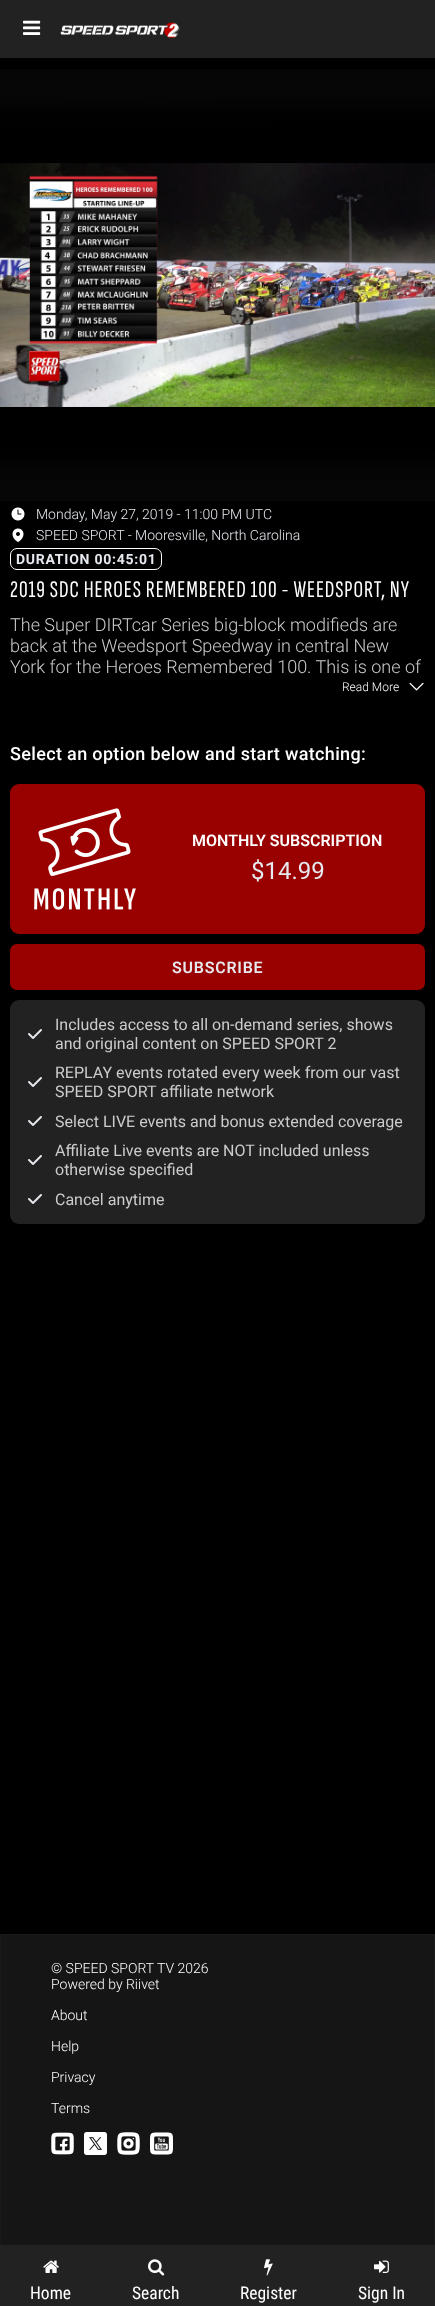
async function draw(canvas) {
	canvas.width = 435;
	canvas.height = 2306;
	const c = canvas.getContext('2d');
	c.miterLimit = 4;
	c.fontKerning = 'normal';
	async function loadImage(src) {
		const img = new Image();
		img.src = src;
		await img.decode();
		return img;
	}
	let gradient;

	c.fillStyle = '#000';
	c.fillRect(0, 0, 435, 2306);
	c.fillStyle = '#222';
	c.fillRect(0, 0, 435, 58);
	c.drawImage(await loadImage('img1.png'), 23, 20, 18, 15);
	c.drawImage(await loadImage('img2.png'), 60, 22, 120, 16);
	c.drawImage(await loadImage('img3.png'), 0, 163, 435, 244);
	gradient = c.createLinearGradient(217, 69, 218, 501);
	gradient.addColorStop(0.04, '#060606');
	gradient.addColorStop(0.1, '#0a0a0a2b');
	gradient.addColorStop(0.14, '#0a0a0a00');
	gradient.addColorStop(0.87, '#0a0a0a00');
	gradient.addColorStop(0.9, '#0a0a0a2b');
	gradient.addColorStop(0.96, '#060606');
	c.fillStyle = gradient;
	c.fillRect(0, 69, 435, 432);
	c.drawImage(await loadImage('img4.png'), 11, 507, 14, 14);
	c.font = '300 14px Roboto';
	c.fillStyle = '#e6e9ef';
	c.fillText('Monday, May 27, 2019 - 11:00 PM UTC', 36, 519);
	c.drawImage(await loadImage('img5.png'), 12, 528, 12, 14);
	c.fillText('SPEED SPORT - Mooresville, North Carolina', 36, 540);
	c.beginPath();
	c.roundRect(10.5, 548.5, 151, 21, 6.5);
	c.strokeStyle = '#fff';
	c.stroke();
	c.letterSpacing = '0.75px';
	c.font = 'bold 14px Roboto';
	c.fillText('DURATION 00:45:01', 16, 564);
	c.letterSpacing = '0.95px';
	c.font = '24px Sofia Sans Extra Condensed';
	c.fillStyle = '#fff';
	c.fillText('2019 SDC HEROES REMEMBERED 100 - WEEDSPORT, NY', 10, 597);
	c.letterSpacing = '0px';
	c.font = '300 18px Roboto';
	c.fillStyle = '#ccc';
	for (const [text, x, y] of [
		['The Super DIRTcar Series big-block modifieds are', 10, 631],
		['back at the Weedsport Speedway in central New', 10, 652],
		['York for the Heroes Remembered 100. This is one of', 10, 673],
	]) {
		c.fillText(text, x, y);
	}
	c.font = '300 12px Roboto';
	c.fillStyle = '#fff';
	c.fillText('Read More', 342, 691);
	c.drawImage(await loadImage('img6.png'), 409, 682, 15, 9);
	c.letterSpacing = '0.35px';
	c.font = '500 18px Roboto';
	c.fillText('Select an option below and start watching:', 10, 760);
	c.fillStyle = '#900';
	c.beginPath();
	c.roundRect(10, 784, 415, 150, 9);
	c.fill();
	c.drawImage(await loadImage('img7.png'), 34, 808, 102, 102);
	c.letterSpacing = '0px';
	c.font = '600 16px Roboto';
	c.fillStyle = '#fff';
	c.fillText('MONTHLY SUBSCRIPTION', 192, 846);
	c.font = '24px Roboto';
	c.fillStyle = '#e6e9ef';
	c.fillText('$14.99', 251, 879);
	c.fillStyle = '#900';
	c.beginPath();
	c.roundRect(10, 944, 415, 46, 7);
	c.fill();
	c.letterSpacing = '0.75px';
	c.font = '600 16px Roboto';
	c.fillStyle = '#e6e9ef';
	c.fillText('SUBSCRIBE', 172, 973);
	c.fillStyle = '#222';
	c.beginPath();
	c.roundRect(10, 1000, 415, 224, 9);
	c.fill();
	c.drawImage(await loadImage('img8.png'), 28, 1029, 14, 10);
	c.letterSpacing = '0px';
	c.font = '16px Roboto';
	c.fillStyle = '#ccc';
	c.fillText('Includes access to all on-demand series, shows', 55, 1030);
	c.fillText('and original content on SPEED SPORT 2', 55, 1049);
	c.drawImage(await loadImage('img8.png'), 28, 1077, 14, 10);
	c.fillText('REPLAY events rotated every week from our vast', 55, 1078);
	c.fillText('SPEED SPORT affiliate network', 55, 1097);
	c.drawImage(await loadImage('img8.png'), 28, 1116, 14, 10);
	c.fillText('Select LIVE events and bonus extended coverage', 55, 1127);
	c.drawImage(await loadImage('img8.png'), 28, 1155, 14, 10);
	c.fillText('Affiliate Live events are NOT included unless', 55, 1156);
	c.fillText('otherwise specified', 55, 1175);
	c.drawImage(await loadImage('img8.png'), 28, 1194, 14, 10);
	c.fillText('Cancel anytime', 55, 1205);
	c.fillStyle = '#151515';
	c.fillRect(1, 1935, 433, 310);
	c.strokeStyle = '#1a1a1a';
	c.strokeRect(0.5, 1934.5, 434, 371);
	c.font = '300 14px Roboto';
	c.fillStyle = '#fff';
	for (const [text, x, y] of [
		['© SPEED SPORT TV 2026', 51, 1973],
		['Powered by Riivet', 51, 1989],
		['About', 51, 2020],
		['Help', 51, 2051],
		['Privacy', 51, 2082],
		['Terms', 51, 2113],
	]) {
		c.fillText(text, x, y);
	}
	c.drawImage(await loadImage('img9.png'), 51, 2132, 23, 23);
	c.drawImage(await loadImage('img10.png'), 84, 2132, 23, 23);
	c.drawImage(await loadImage('img11.png'), 117, 2132, 23, 23);
	c.drawImage(await loadImage('img12.png'), 150, 2132, 23, 23);
	c.fillStyle = '#222';
	c.fillRect(0, 2245, 435, 61);
	c.drawImage(await loadImage('img13.png'), 43, 2260, 16, 13);
	c.font = '17.5px Roboto Condensed';
	c.fillStyle = '#fff';
	c.fillText('Home', 30, 2299);
	c.drawImage(await loadImage('img14.png'), 148, 2259, 17, 17);
	c.fillText('Search', 132, 2299);
	c.drawImage(await loadImage('img15.png'), 264, 2259, 9, 17);
	c.fillText('Register', 240, 2299);
	c.drawImage(await loadImage('img16.png'), 374, 2260, 15, 13);
	c.fillText('Sign In', 358, 2299);
}

draw(document.querySelector('canvas'));
